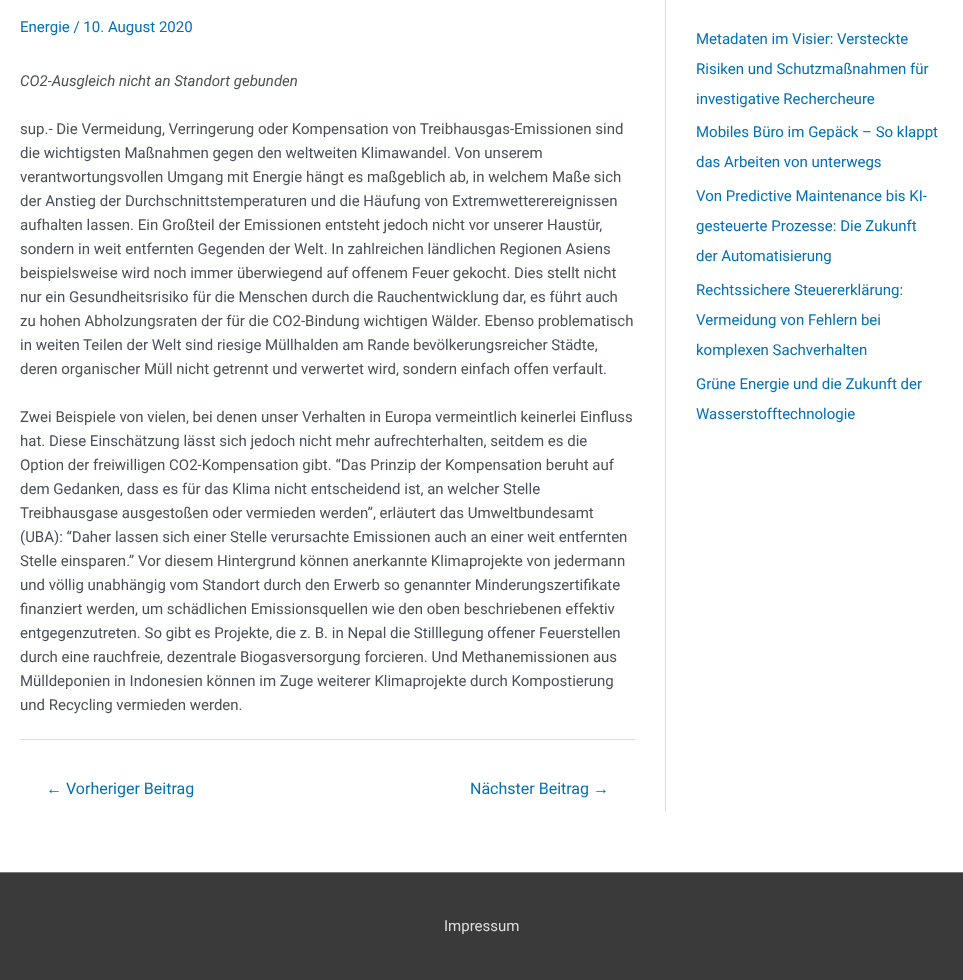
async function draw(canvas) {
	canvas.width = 963;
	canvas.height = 980;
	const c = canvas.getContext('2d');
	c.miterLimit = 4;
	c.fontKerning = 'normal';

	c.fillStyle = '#fff';
	c.fillRect(0, 0, 963, 980);
	c.fillStyle = '#ddd';
	c.fillRect(665, 0, 1, 812);
	c.font = '15px Roboto';
	c.fillStyle = '#0170b9';
	c.fillText('Energie / 10. August 2020', 20, 32);
	c.font = 'italic 15px Roboto';
	c.fillStyle = '#4b4f58';
	c.fillText('CO2-Ausgleich nicht an Standort gebunden', 20, 86);
	c.font = '15px Roboto';
	for (const [text, x, y] of [
		['sup.- Die Vermeidung, Verringerung oder Kompensation von Treibhausgas-Emissionen sind', 20, 134],
		['die wichtigsten Maßnahmen gegen den weltweiten Klimawandel. Von unserem', 20, 158],
		['verantwortungsvollen Umgang mit Energie hängt es maßgeblich ab, in welchem Maße sich', 20, 182],
		['der Anstieg der Durchschnittstemperaturen und die Häufung von Extremwetterereignissen', 20, 206],
		['aufhalten lassen. Ein Großteil der Emissionen entsteht jedoch nicht vor unserer Haustür,', 20, 230],
		['sondern in weit entfernten Gegenden der Welt. In zahlreichen ländlichen Regionen Asiens', 20, 254],
		['beispielsweise wird noch immer überwiegend auf offenem Feuer gekocht. Dies stellt nicht', 20, 278],
		['nur ein Gesundheitsrisiko für die Menschen durch die Rauchentwicklung dar, es führt auch', 20, 302],
		['zu hohen Abholzungsraten der für die CO2-Bindung wichtigen Wälder. Ebenso problematisch', 20, 326],
		['in weiten Teilen der Welt sind riesige Müllhalden am Rande bevölkerungsreicher Städte,', 20, 350],
		['deren organischer Müll nicht getrennt und verwertet wird, sondern einfach offen verfault.', 20, 374],
		['Zwei Beispiele von vielen, bei denen unser Verhalten in Europa vermeintlich keinerlei Einfluss', 20, 422],
		['hat. Diese Einschätzung lässt sich jedoch nicht mehr aufrechterhalten, seitdem es die', 20, 446],
		['Option der freiwilligen CO2-Kompensation gibt. “Das Prinzip der Kompensation beruht auf', 20, 470],
		['dem Gedanken, dass es für das Klima nicht entscheidend ist, an welcher Stelle', 20, 494],
		['Treibhausgase ausgestoßen oder vermieden werden”, erläutert das Umweltbundesamt', 20, 518],
		['(UBA): “Daher lassen sich einer Stelle verursachte Emissionen auch an einer weit entfernten', 20, 542],
		['Stelle einsparen.” Vor diesem Hintergrund können anerkannte Klimaprojekte von jedermann', 20, 566],
		['und völlig unabhängig vom Standort durch den Erwerb so genannter Minderungszertifikate', 20, 590],
		['finanziert werden, um schädlichen Emissionsquellen wie den oben beschriebenen effektiv', 20, 614],
		['entgegenzutreten. So gibt es Projekte, die z. B. in Nepal die Stilllegung offener Feuerstellen', 20, 638],
		['durch eine rauchfreie, dezentrale Biogasversorgung forcieren. Und Methanemissionen aus', 20, 662],
		['Mülldeponien in Indonesien können im Zuge weiterer Klimaprojekte durch Kompostierung', 20, 686],
		['und Recycling vermieden werden.', 20, 710],
	]) {
		c.fillText(text, x, y);
	}
	c.fillStyle = '#ddd';
	c.fillRect(20, 739, 615, 1);
	c.font = '16px Liberation Sans';
	c.fillStyle = '#0170b9';
	c.fillText('←', 46, 794);
	c.font = '16px Roboto';
	c.fillText('Vorheriger Beitrag', 66, 794);
	c.fillText('Nächster Beitrag', 470, 794);
	c.font = '16px Liberation Sans';
	c.fillText('→', 593, 794);
	c.font = '15px Roboto';
	for (const [text, x, y] of [
		['Metadaten im Visier: Versteckte', 696, 44],
		['Risiken und Schutzmaßnahmen für', 696, 74],
		['investigative Rechercheure', 696, 104],
		['Mobiles Büro im Gepäck – So klappt', 696, 137],
		['das Arbeiten von unterwegs', 696, 167],
		['Von Predictive Maintenance bis KI-', 696, 201],
		['gesteuerte Prozesse: Die Zukunft', 696, 231],
		['der Automatisierung', 696, 261],
		['Rechtssichere Steuererklärung:', 696, 295],
		['Vermeidung von Fehlern bei', 696, 325],
		['komplexen Sachverhalten', 696, 355],
		['Grüne Energie und die Zukunft der', 696, 389],
		['Wasserstofftechnologie', 696, 419],
	]) {
		c.fillText(text, x, y);
	}
	c.fillStyle = '#7a7a7a';
	c.fillRect(0, 872, 963, 1);
	c.fillStyle = '#3a3a3a';
	c.fillRect(0, 873, 963, 107);
	c.fillStyle = '#ddd';
	c.fillText('Impressum', 444, 931);
}

draw(document.querySelector('canvas'));
